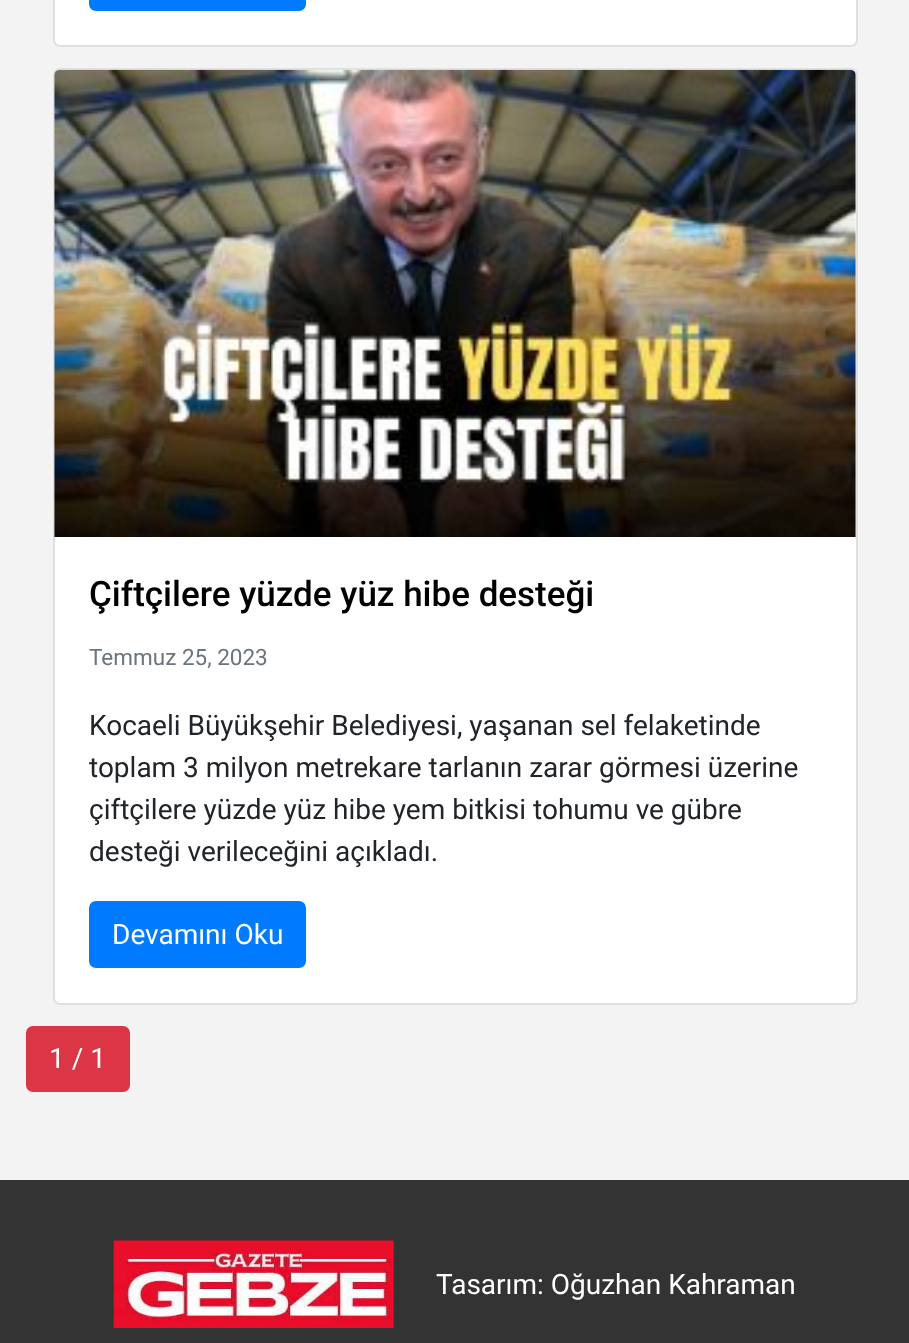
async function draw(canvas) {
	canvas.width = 909;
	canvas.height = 1343;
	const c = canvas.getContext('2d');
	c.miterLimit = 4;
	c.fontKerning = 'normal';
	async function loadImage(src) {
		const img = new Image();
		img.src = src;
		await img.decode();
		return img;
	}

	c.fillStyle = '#f4f3f4';
	c.fillRect(0, 0, 909, 1343);
	c.fillStyle = '#fff';
	c.beginPath();
	c.roundRect(53, -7, 805, 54, 7);
	c.fill();
	c.beginPath();
	c.roundRect(54, -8, 803, 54, 6);
	c.strokeStyle = '#0000001f';
	c.lineWidth = 2;
	c.stroke();
	c.fillStyle = '#007bff';
	c.beginPath();
	c.roundRect(90, -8, 215, 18, 6);
	c.fill();
	c.strokeStyle = '#007bff';
	c.stroke();
	c.fillStyle = '#fff';
	c.beginPath();
	c.roundRect(53, 68, 805, 937, 7);
	c.fill();
	c.beginPath();
	c.roundRect(54, 69, 803, 935, 6);
	c.strokeStyle = '#0000001f';
	c.stroke();
	c.drawImage(await loadImage('img1.png'), 54, 69, 802, 468);
	c.font = '500 35px Roboto';
	c.fillStyle = '#000';
	c.fillText('Çiftçilere yüzde yüz hibe desteği', 89, 606);
	c.font = '22.5px Roboto';
	c.fillStyle = '#6c757d';
	c.fillText('Temmuz 25, 2023', 89, 665);
	c.font = '28px Roboto';
	c.fillStyle = '#212529';
	for (const [text, x, y] of [
		['Kocaeli Büyükşehir Belediyesi, yaşanan sel felaketinde', 89, 735],
		['toplam 3 milyon metrekare tarlanın zarar görmesi üzerine', 89, 777],
		['çiftçilere yüzde yüz hibe yem bitkisi tohumu ve gübre', 89, 819],
		['desteği verileceğini açıkladı.', 89, 861],
	]) {
		c.fillText(text, x, y);
	}
	c.fillStyle = '#007bff';
	c.beginPath();
	c.roundRect(90, 902, 215, 65, 6);
	c.fill();
	c.strokeStyle = '#007bff';
	c.stroke();
	c.fillStyle = '#fff';
	c.fillText('Devamını Oku', 112, 944);
	c.fillStyle = '#dc3545';
	c.beginPath();
	c.roundRect(27, 1027, 102, 64, 6);
	c.fill();
	c.strokeStyle = '#dc3545';
	c.stroke();
	c.fillStyle = '#fff';
	c.fillText('1 / 1', 49, 1068);
	c.fillStyle = '#333';
	c.fillRect(0, 1180, 909, 163);
	c.drawImage(await loadImage('img2.png'), 113, 1240, 281, 88);
	c.fillStyle = '#fff';
	c.fillText('Tasarım: Oğuzhan Kahraman', 436, 1294);
}

draw(document.querySelector('canvas'));
